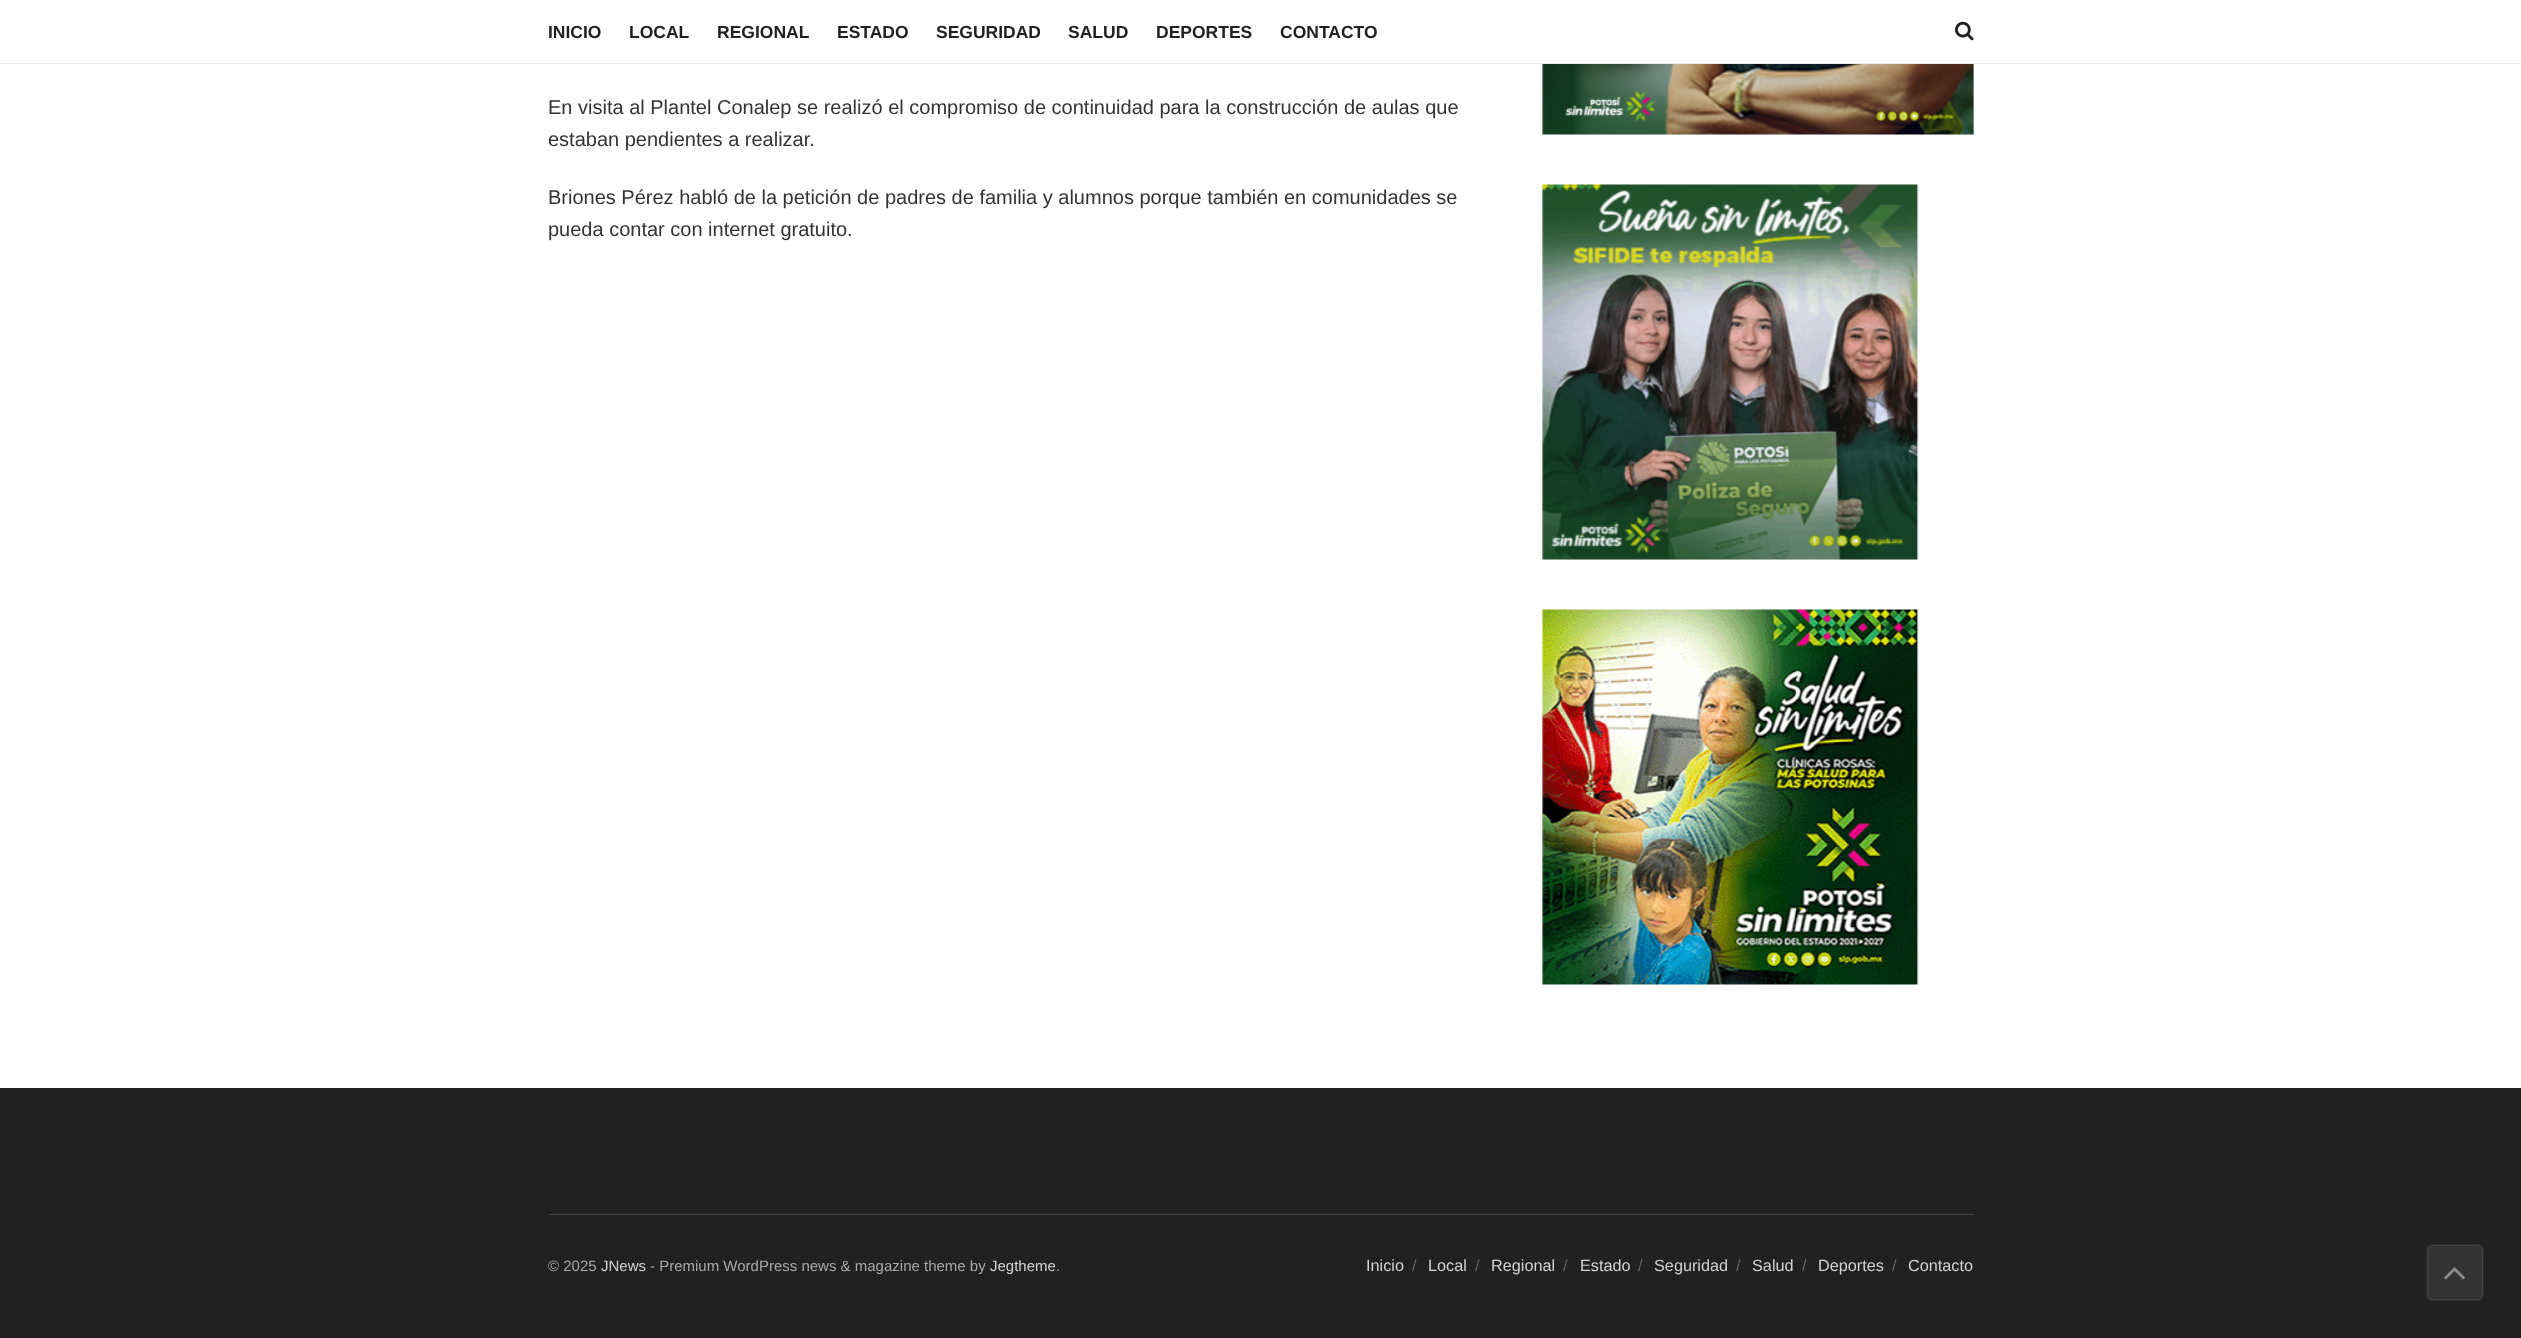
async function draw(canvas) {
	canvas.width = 2521;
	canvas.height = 1338;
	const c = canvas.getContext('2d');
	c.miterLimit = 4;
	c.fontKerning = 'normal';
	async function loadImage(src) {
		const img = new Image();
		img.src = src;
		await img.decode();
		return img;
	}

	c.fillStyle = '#fff';
	c.fillRect(0, 0, 2521, 1338);
	c.fillStyle = '#e8e8e8';
	c.fillRect(0, 63, 2521, 1);
	c.font = 'bold 17.5px Liberation Sans';
	c.fillStyle = '#212121';
	for (const [text, x, y] of [
		['INICIO', 548, 38],
		['LOCAL', 629, 38],
		['REGIONAL', 717, 38],
		['ESTADO', 837, 38],
		['SEGURIDAD', 936, 38],
		['SALUD', 1068, 38],
		['DEPORTES', 1156, 38],
		['CONTACTO', 1280, 38],
	]) {
		c.fillText(text, x, y);
	}
	c.drawImage(await loadImage('img1.png'), 1955, 21, 19, 20);
	c.font = '20px Liberation Sans';
	c.fillStyle = '#333';
	for (const [text, x, y] of [
		['En visita al Plantel Conalep se realizó el compromiso de continuidad para la construcción de aulas que', 548, 114],
		['estaban pendientes a realizar.', 548, 146],
		['Briones Pérez habló de la petición de padres de familia y alumnos porque también en comunidades se', 548, 204],
		['pueda contar con internet gratuito.', 548, 236],
	]) {
		c.fillText(text, x, y);
	}
	c.drawImage(await loadImage('img2.png'), 1542, 64, 432, 71);
	c.drawImage(await loadImage('img3.png'), 1542, 184, 377, 376);
	c.drawImage(await loadImage('img4.png'), 1542, 609, 377, 376);
	c.fillStyle = '#212121';
	c.fillRect(0, 1088, 2521, 250);
	c.fillStyle = '#424242';
	c.fillRect(549, 1214, 1425, 1);
	c.font = '15px Liberation Sans';
	c.fillStyle = '#a8a8aa';
	c.fillText('© 2025', 548, 1271);
	c.fillStyle = '#d3d3d3';
	c.fillText('JNews', 601, 1271);
	c.fillStyle = '#a8a8aa';
	c.fillText('- Premium WordPress news & magazine theme by', 650, 1271);
	c.fillStyle = '#d3d3d3';
	c.fillText('Jegtheme', 990, 1271);
	c.fillStyle = '#a8a8aa';
	c.fillText('.', 1056, 1271);
	c.font = '16.25px Liberation Sans';
	c.fillStyle = '#d3d3d3';
	c.fillText('Inicio', 1366, 1271);
	c.fillStyle = '#646464';
	c.fillText('/', 1412, 1271);
	c.fillStyle = '#d3d3d3';
	c.fillText('Local', 1428, 1271);
	c.fillStyle = '#646464';
	c.fillText('/', 1475, 1271);
	c.fillStyle = '#d3d3d3';
	c.fillText('Regional', 1491, 1271);
	c.fillStyle = '#646464';
	c.fillText('/', 1563, 1271);
	c.fillStyle = '#d3d3d3';
	c.fillText('Estado', 1580, 1271);
	c.fillStyle = '#646464';
	c.fillText('/', 1638, 1271);
	c.fillStyle = '#d3d3d3';
	c.fillText('Seguridad', 1654, 1271);
	c.fillStyle = '#646464';
	c.fillText('/', 1736, 1271);
	c.fillStyle = '#d3d3d3';
	c.fillText('Salud', 1752, 1271);
	c.fillStyle = '#646464';
	c.fillText('/', 1802, 1271);
	c.fillStyle = '#d3d3d3';
	c.fillText('Deportes', 1818, 1271);
	c.fillStyle = '#646464';
	c.fillText('/', 1892, 1271);
	c.fillStyle = '#d3d3d3';
	c.fillText('Contacto', 1908, 1271);
	c.fillStyle = '#333';
	c.beginPath();
	c.roundRect(2426, 1244, 58, 57, 6);
	c.fill();
	c.beginPath();
	c.roundRect(2428.5, 1245.5, 54, 54, 4.5);
	c.strokeStyle = '#434343';
	c.stroke();
	c.beginPath();
	c.roundRect(2426.5, 1244.5, 57, 56, 5.5);
	c.strokeStyle = '#0707071c';
	c.stroke();
	c.drawImage(await loadImage('img5.png'), 2444, 1267, 21, 13);
}

draw(document.querySelector('canvas'));
